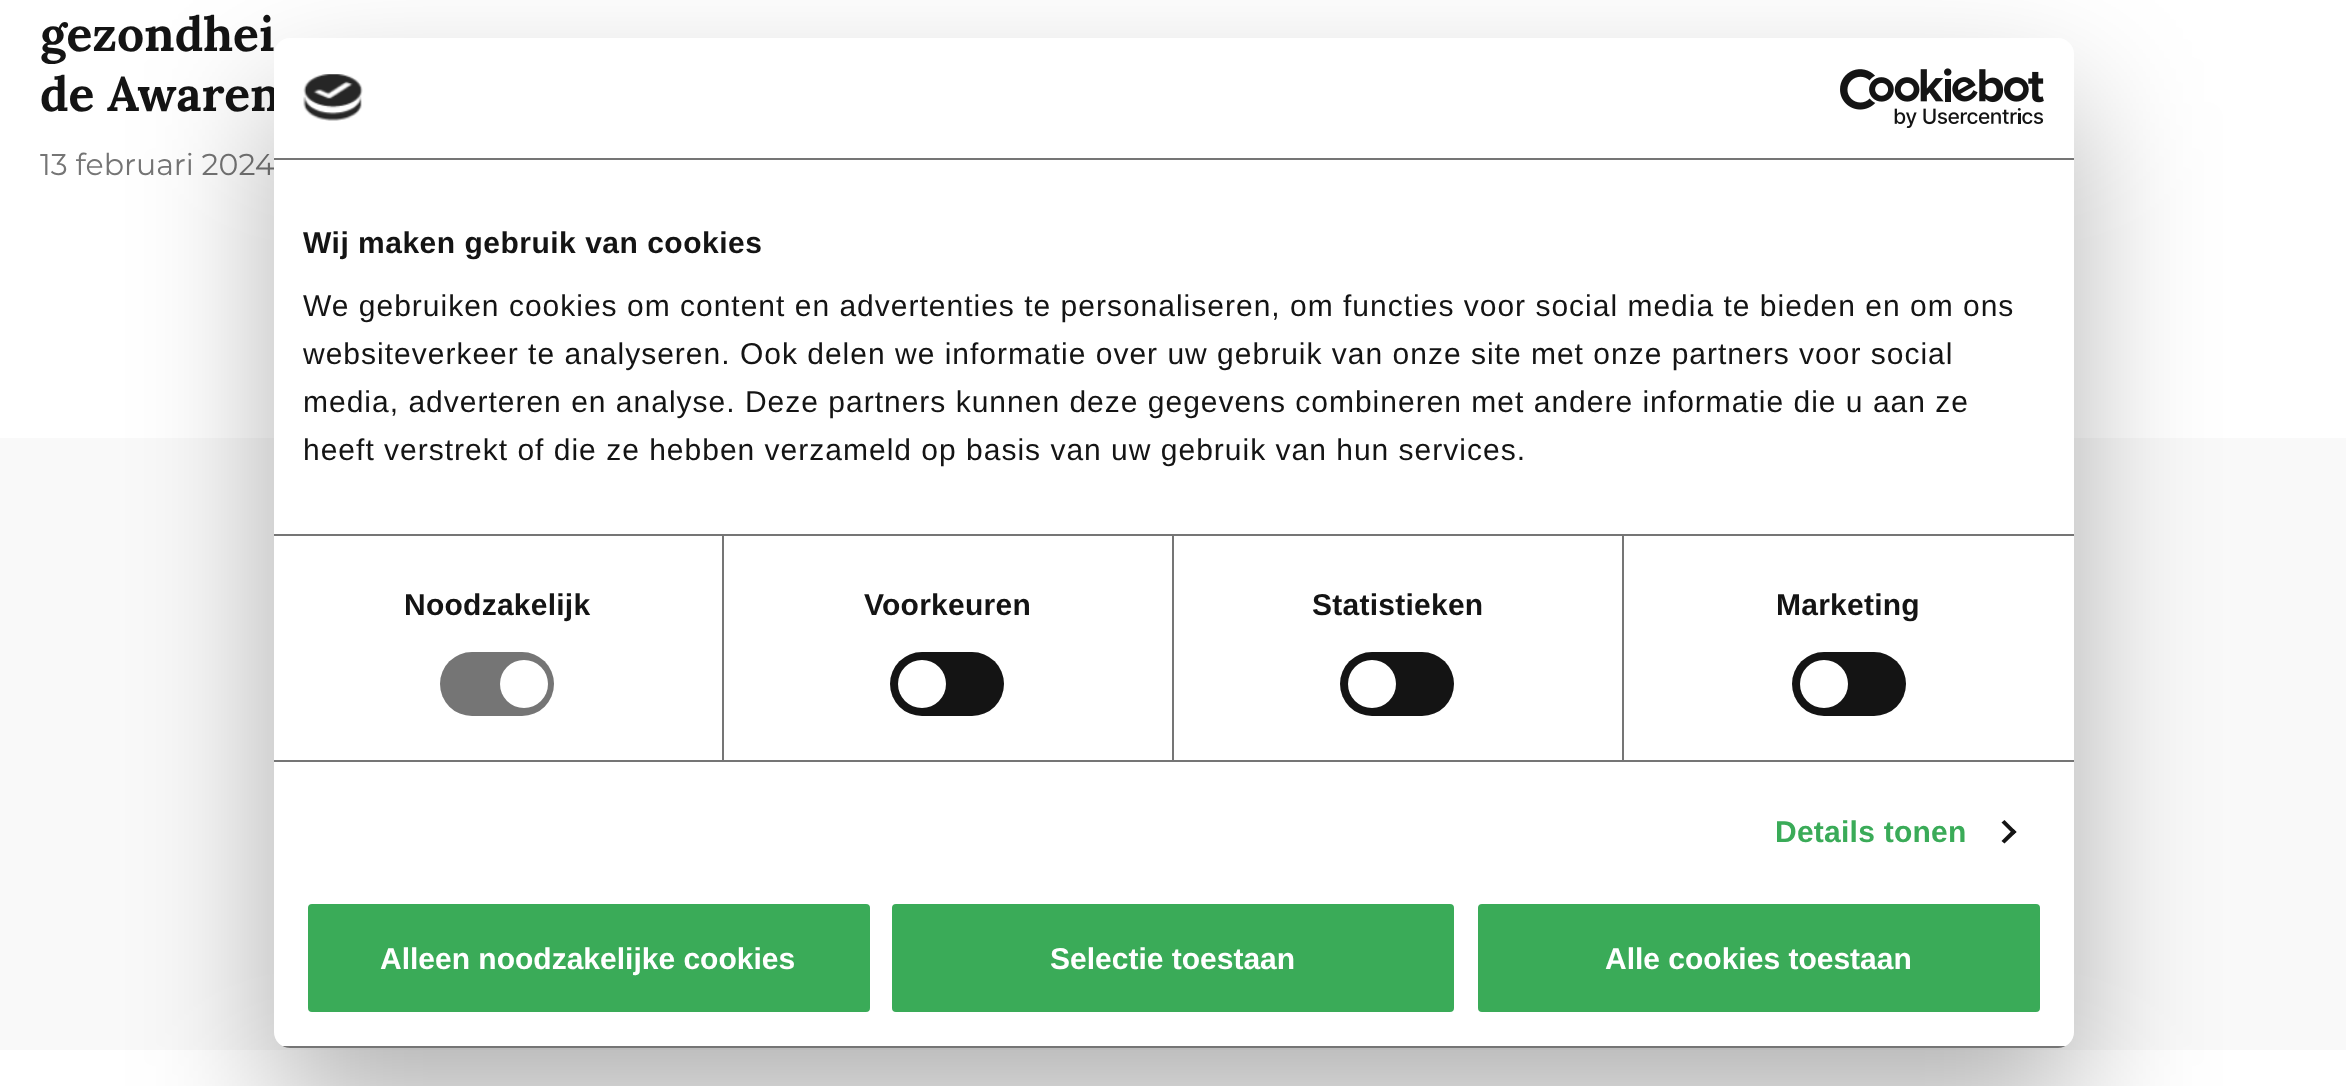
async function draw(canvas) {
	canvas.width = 2346;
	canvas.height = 1086;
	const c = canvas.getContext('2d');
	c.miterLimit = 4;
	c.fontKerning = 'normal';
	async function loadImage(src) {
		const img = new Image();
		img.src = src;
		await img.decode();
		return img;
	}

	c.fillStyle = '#fff';
	c.fillRect(0, 0, 2346, 1086);
	c.font = 'bold 48px Lora';
	c.fillStyle = '#141414';
	c.fillText('gezondhei', 40, 51);
	c.fillText('de Awaren', 40, 111);
	c.font = '30px Montserrat';
	c.fillStyle = '#757575';
	c.fillText('13 februari 2024', 40, 175);
	c.fillStyle = '#f9f9f9';
	c.fillRect(0, 438, 2346, 612);
	c.fillStyle = '#0000004d';
	c.filter = 'blur(68px)';
	c.beginPath();
	c.roundRect(274, 102, 1800, 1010, 16);
	c.fill();
	c.filter = 'none';
	c.fillStyle = '#fff';
	c.beginPath();
	c.roundRect(274, 38, 1800, 1010, 16);
	c.fill();
	c.fillStyle = '#757575';
	c.fillRect(274, 158, 1800, 2);
	c.drawImage(await loadImage('img1.png'), 303, 74, 60, 47);
	c.drawImage(await loadImage('img2.png'), 1840, 68, 204, 60);
	c.fillRect(274, 534, 1800, 2);
	c.letterSpacing = '0.5px';
	c.font = 'bold 30px Liberation Sans';
	c.fillStyle = '#141414';
	c.fillText('Wij maken gebruik van cookies', 303, 253);
	c.letterSpacing = '1px';
	c.font = '30px Liberation Sans';
	for (const [text, x, y] of [
		['We gebruiken cookies om content en advertenties te personaliseren, om functies voor social media te bieden en om ons', 303, 316],
		['websiteverkeer te analyseren. Ook delen we informatie over uw gebruik van onze site met onze partners voor social', 303, 364],
		['media, adverteren en analyse. Deze partners kunnen deze gegevens combineren met andere informatie die u aan ze', 303, 412],
		['heeft verstrekt of die ze hebben verzameld op basis van uw gebruik van hun services.', 303, 460],
	]) {
		c.fillText(text, x, y);
	}
	c.fillStyle = '#757575';
	c.fillRect(274, 760, 1800, 2);
	c.fillRect(722, 536, 2, 224);
	c.letterSpacing = '0.25px';
	c.font = 'bold 30px Liberation Sans';
	c.fillStyle = '#141414';
	c.fillText('Noodzakelijk', 404, 615);
	c.fillStyle = '#757575';
	c.beginPath();
	c.roundRect(440, 652, 114, 64, 32);
	c.fill();
	c.fillStyle = '#fff';
	c.beginPath();
	c.arc(524, 684, 24, 0, 2 * Math.PI);
	c.fill();
	c.fillStyle = '#757575';
	c.fillRect(1172, 536, 2, 224);
	c.fillStyle = '#141414';
	c.fillText('Voorkeuren', 864, 615);
	c.beginPath();
	c.roundRect(890, 652, 114, 64, 32);
	c.fill();
	c.fillStyle = '#fff';
	c.beginPath();
	c.arc(922, 684, 24, 0, 2 * Math.PI);
	c.fill();
	c.fillStyle = '#757575';
	c.fillRect(1622, 536, 2, 224);
	c.fillStyle = '#141414';
	c.fillText('Statistieken', 1312, 615);
	c.beginPath();
	c.roundRect(1340, 652, 114, 64, 32);
	c.fill();
	c.fillStyle = '#fff';
	c.beginPath();
	c.arc(1372, 684, 24, 0, 2 * Math.PI);
	c.fill();
	c.fillStyle = '#141414';
	c.fillText('Marketing', 1776, 615);
	c.beginPath();
	c.roundRect(1792, 652, 114, 64, 32);
	c.fill();
	c.fillStyle = '#fff';
	c.beginPath();
	c.arc(1824, 684, 24, 0, 2 * Math.PI);
	c.fill();
	c.fillStyle = '#3aab58';
	c.fillText('Details tonen', 1775, 842);
	c.fillStyle = '#141414';
	c.beginPath();
	c.moveTo(2004.5, 820);
	c.lineTo(2016.5, 832);
	c.lineTo(2013.5, 834.5);
	c.lineTo(2001.5, 822.5);
	c.closePath();
	c.fill();
	c.beginPath();
	c.moveTo(2013.5, 829);
	c.lineTo(2016.5, 832);
	c.lineTo(2004.5, 843.5);
	c.lineTo(2001.5, 841);
	c.closePath();
	c.fill();
	c.save();
	c.beginPath();
	c.roundRect(274, 38, 1800, 1010, 16);
	c.clip();
	c.fillStyle = '#757575';
	c.fillRect(274, 1046, 1800, 2);
	c.restore();
	c.fillStyle = '#3aab58';
	c.beginPath();
	c.roundRect(306, 902, 566, 112, 6);
	c.fill();
	c.strokeStyle = '#fff';
	c.lineWidth = 4;
	c.stroke();
	c.letterSpacing = '0px';
	c.fillStyle = '#fff';
	c.fillText('Alleen noodzakelijke cookies', 380, 969);
	c.fillStyle = '#3aab58';
	c.beginPath();
	c.roundRect(890, 902, 566, 112, 6);
	c.fill();
	c.stroke();
	c.fillStyle = '#fff';
	c.fillText('Selectie toestaan', 1050, 969);
	c.fillStyle = '#3aab58';
	c.beginPath();
	c.roundRect(1476, 902, 566, 112, 6);
	c.fill();
	c.stroke();
	c.fillStyle = '#fff';
	c.fillText('Alle cookies toestaan', 1605, 969);
}

draw(document.querySelector('canvas'));
